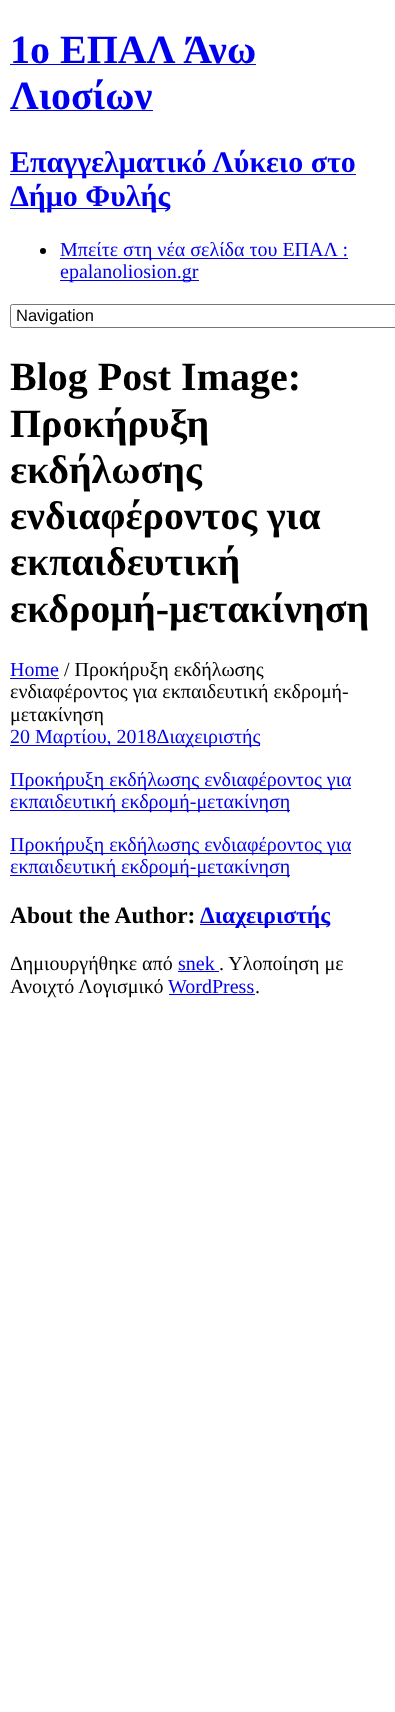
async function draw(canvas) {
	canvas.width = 395;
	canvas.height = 1712;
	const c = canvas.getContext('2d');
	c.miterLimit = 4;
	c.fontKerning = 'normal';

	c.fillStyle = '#fff';
	c.fillRect(0, 0, 395, 1712);
	c.font = 'bold 40px Liberation Serif';
	c.fillStyle = '#00e';
	c.fillText('1o ΕΠΑΛ Άνω', 10, 63);
	c.fillRect(10, 64, 246, 1);
	c.fillText('Λιοσίων', 10, 109);
	c.fillRect(10, 110, 143, 1);
	c.fillRect(10, 174, 346, 1);
	c.font = 'bold 30px Liberation Serif';
	c.fillText('Επαγγελματικό Λύκειο στο', 10, 172);
	c.fillRect(10, 208, 160, 1);
	c.fillText('Δήμο Φυλής', 10, 206);
	c.fillStyle = '#000';
	c.beginPath();
	c.arc(43, 251, 3, 0, 2 * Math.PI);
	c.fill();
	c.fillStyle = '#00e';
	c.fillRect(60, 258, 288, 1);
	c.font = '20px Liberation Serif';
	c.fillText('Μπείτε στη νέα σελίδα του ΕΠΑΛ :', 60, 256);
	c.fillRect(60, 280, 139, 1);
	c.fillText('epalanoliosion.gr', 60, 278);
	c.beginPath();
	c.roundRect(10.5, 304.5, 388, 23, 2);
	c.strokeStyle = '#767676';
	c.stroke();
	c.font = '16.5px Liberation Sans';
	c.fillStyle = '#000';
	c.fillText('Navigation', 16, 321);
	c.font = 'bold 40px Liberation Serif';
	for (const [text, x, y] of [
		['Blog Post Image:', 10, 390],
		['Προκήρυξη', 10, 437],
		['εκδήλωσης', 10, 483],
		['ενδιαφέροντος για', 10, 529],
		['εκπαιδευτική', 10, 575],
		['εκδρομή-μετακίνηση', 10, 622],
	]) {
		c.fillText(text, x, y);
	}
	c.font = '20px Liberation Serif';
	c.fillStyle = '#00e';
	c.fillText('Home', 10, 676);
	c.fillRect(10, 678, 49, 1);
	c.fillStyle = '#000';
	for (const [text, x, y] of [
		['/ Προκήρυξη εκδήλωσης', 64, 676],
		['ενδιαφέροντος για εκπαιδευτική εκδρομή-', 10, 698],
		['μετακίνηση', 10, 721],
	]) {
		c.fillText(text, x, y);
	}
	c.fillStyle = '#00e';
	c.fillRect(10, 745, 250, 1);
	c.fillText('20 Μαρτίου, 2018Διαχειριστής', 10, 743);
	c.fillRect(10, 788, 341, 1);
	c.fillText('Προκήρυξη εκδήλωσης ενδιαφέροντος για', 10, 786);
	c.fillRect(10, 810, 280, 1);
	c.fillText('εκπαιδευτική εκδρομή-μετακίνηση', 10, 808);
	c.fillRect(10, 853, 341, 1);
	c.fillText('Προκήρυξη εκδήλωσης ενδιαφέροντος για', 10, 851);
	c.fillRect(10, 875, 280, 1);
	c.fillText('εκπαιδευτική εκδρομή-μετακίνηση', 10, 873);
	c.font = 'bold 23.5px Liberation Serif';
	c.fillStyle = '#000';
	c.fillText('About the Author:', 10, 923);
	c.fillStyle = '#00e';
	c.fillRect(200, 924, 130, 1);
	c.fillText('Διαχειριστής', 200, 923);
	c.font = '20px Liberation Serif';
	c.fillStyle = '#000';
	c.fillText('Δημιουργήθηκε από', 10, 970);
	c.fillStyle = '#00e';
	c.fillText('snek', 178, 970);
	c.fillRect(178, 971, 41, 1);
	c.fillStyle = '#000';
	c.fillText('. Υλοποίηση με', 219, 970);
	c.fillText('Ανοιχτό Λογισμικό', 10, 993);
	c.fillStyle = '#00e';
	c.fillText('WordPress', 168, 993);
	c.fillRect(169, 994, 86, 1);
	c.fillStyle = '#000';
	c.fillText('.', 255, 993);
}

draw(document.querySelector('canvas'));
